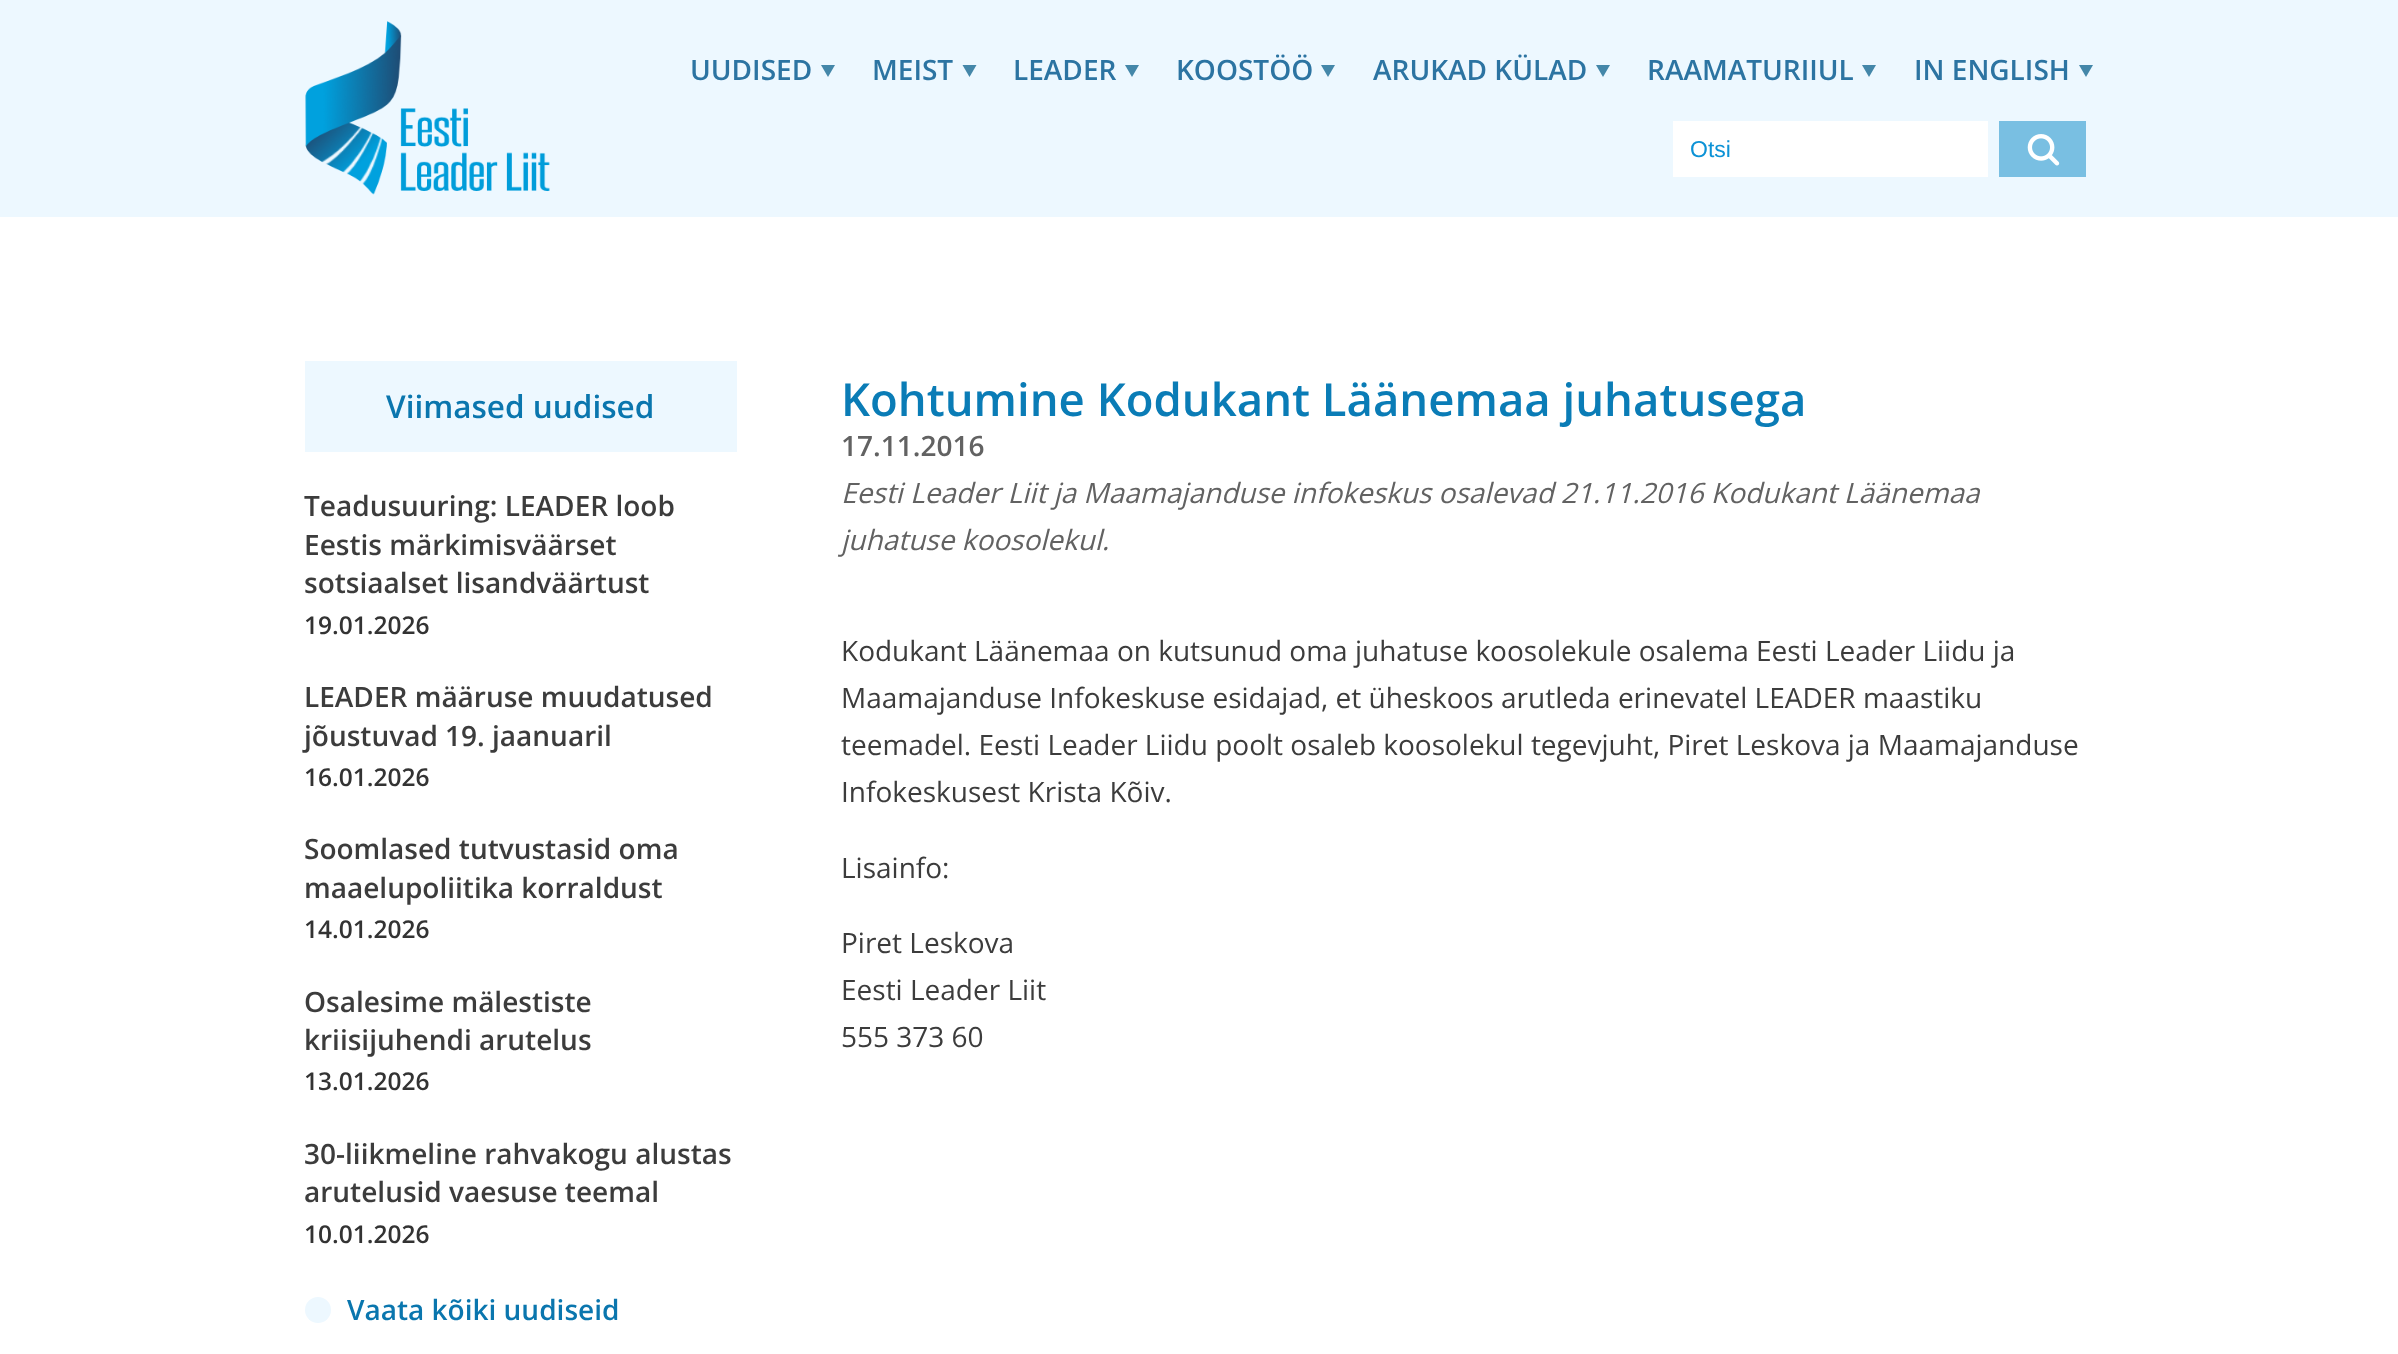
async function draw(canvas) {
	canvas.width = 2398;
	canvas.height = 1354;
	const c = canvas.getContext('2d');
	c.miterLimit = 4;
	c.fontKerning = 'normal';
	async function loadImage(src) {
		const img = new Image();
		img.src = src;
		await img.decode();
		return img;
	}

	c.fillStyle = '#fff';
	c.fillRect(0, 0, 2398, 1354);
	c.fillStyle = '#edf8ff';
	c.fillRect(0, 0, 2398, 217);
	c.drawImage(await loadImage('img1.png'), 305, 21, 245, 174);
	c.font = '600 28px Open Sans';
	c.fillStyle = '#2c74a2';
	c.fillText('UUDISED', 690, 80);
	c.fillStyle = '#4487a9';
	c.beginPath();
	c.moveTo(821, 65);
	c.lineTo(835, 65);
	c.lineTo(828, 77);
	c.closePath();
	c.fill();
	c.fillStyle = '#2c74a2';
	c.fillText('MEIST', 872, 80);
	c.fillStyle = '#4487a9';
	c.beginPath();
	c.moveTo(962.5, 65);
	c.lineTo(976.5, 65);
	c.lineTo(969.5, 77);
	c.closePath();
	c.fill();
	c.fillStyle = '#2c74a2';
	c.fillText('LEADER', 1013, 80);
	c.fillStyle = '#4487a9';
	c.beginPath();
	c.moveTo(1125, 65);
	c.lineTo(1139, 65);
	c.lineTo(1132, 77);
	c.closePath();
	c.fill();
	c.fillStyle = '#2c74a2';
	c.fillText('KOOSTÖÖ', 1176, 80);
	c.fillStyle = '#4487a9';
	c.beginPath();
	c.moveTo(1321, 65);
	c.lineTo(1335, 65);
	c.lineTo(1328, 77);
	c.closePath();
	c.fill();
	c.fillStyle = '#2c74a2';
	c.fillText('ARUKAD KÜLAD', 1373, 80);
	c.fillStyle = '#4487a9';
	c.beginPath();
	c.moveTo(1596, 65);
	c.lineTo(1610, 65);
	c.lineTo(1603, 77);
	c.closePath();
	c.fill();
	c.fillStyle = '#2c74a2';
	c.fillText('RAAMATURIIUL', 1647, 80);
	c.fillStyle = '#4487a9';
	c.beginPath();
	c.moveTo(1862, 65);
	c.lineTo(1876, 65);
	c.lineTo(1869, 77);
	c.closePath();
	c.fill();
	c.fillStyle = '#2c74a2';
	c.fillText('IN ENGLISH', 1914, 80);
	c.fillStyle = '#4487a9';
	c.beginPath();
	c.moveTo(2079, 65);
	c.lineTo(2093, 65);
	c.lineTo(2086, 77);
	c.closePath();
	c.fill();
	c.fillStyle = '#fff';
	c.fillRect(1673, 121, 315, 56);
	c.save();
	c.beginPath();
	c.rect(1691, 137, 271, 26);
	c.clip();
	c.font = '23px Liberation Sans';
	c.fillStyle = '#0c92d6';
	c.fillText('Otsi', 1690, 157);
	c.restore();
	c.fillStyle = '#79bfe2';
	c.fillRect(1999, 121, 87, 56);
	c.drawImage(await loadImage('img2.png'), 2027, 134, 33, 32);
	c.fillStyle = '#edf8ff';
	c.fillRect(305, 361, 432, 91);
	c.font = '600 31.5px Open Sans';
	c.fillStyle = '#0a76ae';
	c.fillText('Viimased uudised', 386, 418);
	c.font = '600 28px Open Sans';
	c.fillStyle = '#3c3c3c';
	for (const [text, x, y] of [
		['Teadusuuring: LEADER loob', 304, 516],
		['Eestis märkimisväärset', 304, 555],
		['sotsiaalset lisandväärtust', 304, 593],
	]) {
		c.fillText(text, x, y);
	}
	c.font = '600 24.5px Open Sans';
	c.fillStyle = '#333';
	c.fillText('19.01.2026', 304, 634);
	c.font = '600 28px Open Sans';
	c.fillStyle = '#3c3c3c';
	c.fillText('LEADER määruse muudatused', 304, 707);
	c.fillText('jõustuvad 19. jaanuaril', 304, 746);
	c.font = '600 24.5px Open Sans';
	c.fillStyle = '#333';
	c.fillText('16.01.2026', 304, 786);
	c.font = '600 28px Open Sans';
	c.fillStyle = '#3c3c3c';
	c.fillText('Soomlased tutvustasid oma', 304, 859);
	c.fillText('maaelupoliitika korraldust', 304, 898);
	c.font = '600 24.5px Open Sans';
	c.fillStyle = '#333';
	c.fillText('14.01.2026', 304, 938);
	c.font = '600 28px Open Sans';
	c.fillStyle = '#3c3c3c';
	c.fillText('Osalesime mälestiste', 304, 1012);
	c.fillText('kriisijuhendi arutelus', 304, 1050);
	c.font = '600 24.5px Open Sans';
	c.fillStyle = '#333';
	c.fillText('13.01.2026', 304, 1090);
	c.font = '600 28px Open Sans';
	c.fillStyle = '#3c3c3c';
	c.fillText('30-liikmeline rahvakogu alustas', 304, 1164);
	c.fillText('arutelusid vaesuse teemal', 304, 1202);
	c.font = '600 24.5px Open Sans';
	c.fillStyle = '#333';
	c.fillText('10.01.2026', 304, 1243);
	c.fillStyle = '#edf8ff';
	c.beginPath();
	c.arc(318, 1310, 13, 0, 2 * Math.PI);
	c.fill();
	c.font = '600 28px Open Sans';
	c.fillStyle = '#0a76ae';
	c.fillText('Vaata kõiki uudiseid', 347, 1320);
	c.font = '600 45.5px Open Sans';
	c.fillStyle = '#0a7cb6';
	c.fillText('Kohtumine Kodukant Läänemaa juhatusega', 841, 416);
	c.font = '600 28px Open Sans';
	c.fillStyle = '#626262';
	c.fillText('17.11.2016', 841, 456);
	c.font = 'italic 28px Open Sans';
	c.fillText('Eesti Leader Liit ja Maamajanduse infokeskus osalevad 21.11.2016 Kodukant Läänemaa', 841, 503);
	c.fillText('juhatuse koosolekul.', 841, 550);
	c.font = '28px Open Sans';
	c.fillStyle = '#3c3c3c';
	for (const [text, x, y] of [
		['Kodukant Läänemaa on kutsunud oma juhatuse koosolekule osalema Eesti Leader Liidu ja', 841, 661],
		['Maamajanduse Infokeskuse esidajad, et üheskoos arutleda erinevatel LEADER maastiku', 841, 708],
		['teemadel. Eesti Leader Liidu poolt osaleb koosolekul tegevjuht, Piret Leskova ja Maamajanduse', 841, 755],
		['Infokeskusest Krista Kõiv.', 841, 802],
		['Lisainfo:', 841, 878],
		['Piret Leskova', 841, 953],
		['Eesti Leader Liit', 841, 1000],
		['555 373 60', 841, 1047],
	]) {
		c.fillText(text, x, y);
	}
}

draw(document.querySelector('canvas'));
